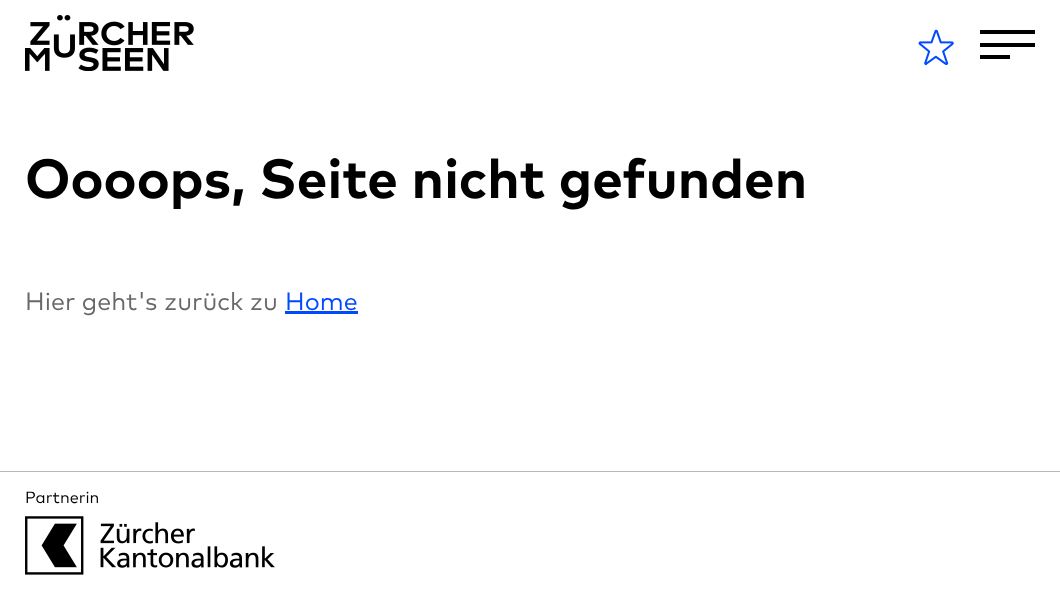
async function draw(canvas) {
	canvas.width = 1060;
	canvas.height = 596;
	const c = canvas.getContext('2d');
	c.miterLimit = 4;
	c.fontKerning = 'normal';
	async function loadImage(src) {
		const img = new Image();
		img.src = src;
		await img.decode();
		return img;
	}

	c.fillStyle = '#fff';
	c.fillRect(0, 0, 1060, 596);
	c.drawImage(await loadImage('img1.png'), 25, 15, 169, 56);
	c.drawImage(await loadImage('img2.png'), 918, 29, 36, 37);
	for (const [x, y, w, h, color] of [
		[980, 43, 55, 4, '#000'],
		[980, 30, 55, 4, '#000'],
		[980, 55, 30, 4, '#000'],
	]) {
		c.fillStyle = color;
		c.fillRect(x, y, w, h);
	}
	c.font = 'bold 55px "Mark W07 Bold"';
	c.fillText('Oooops, Seite nicht gefunden', 25, 198);
	c.font = '25px "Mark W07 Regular"';
	c.fillStyle = '#686868';
	c.fillText('Hier geht\'s zurück zu', 25, 310);
	c.fillStyle = '#0148ff';
	c.fillText('Home', 285, 310);
	c.fillRect(285, 311, 73, 3);
	c.fillStyle = '#b8b8b8';
	c.fillRect(0, 471, 1060, 1);
	c.font = '16.25px "Mark W07 Regular"';
	c.fillStyle = '#000';
	c.fillText('Partnerin', 25, 503);
	c.drawImage(await loadImage('img3.png'), 25, 516, 250, 59);
}

draw(document.querySelector('canvas'));
